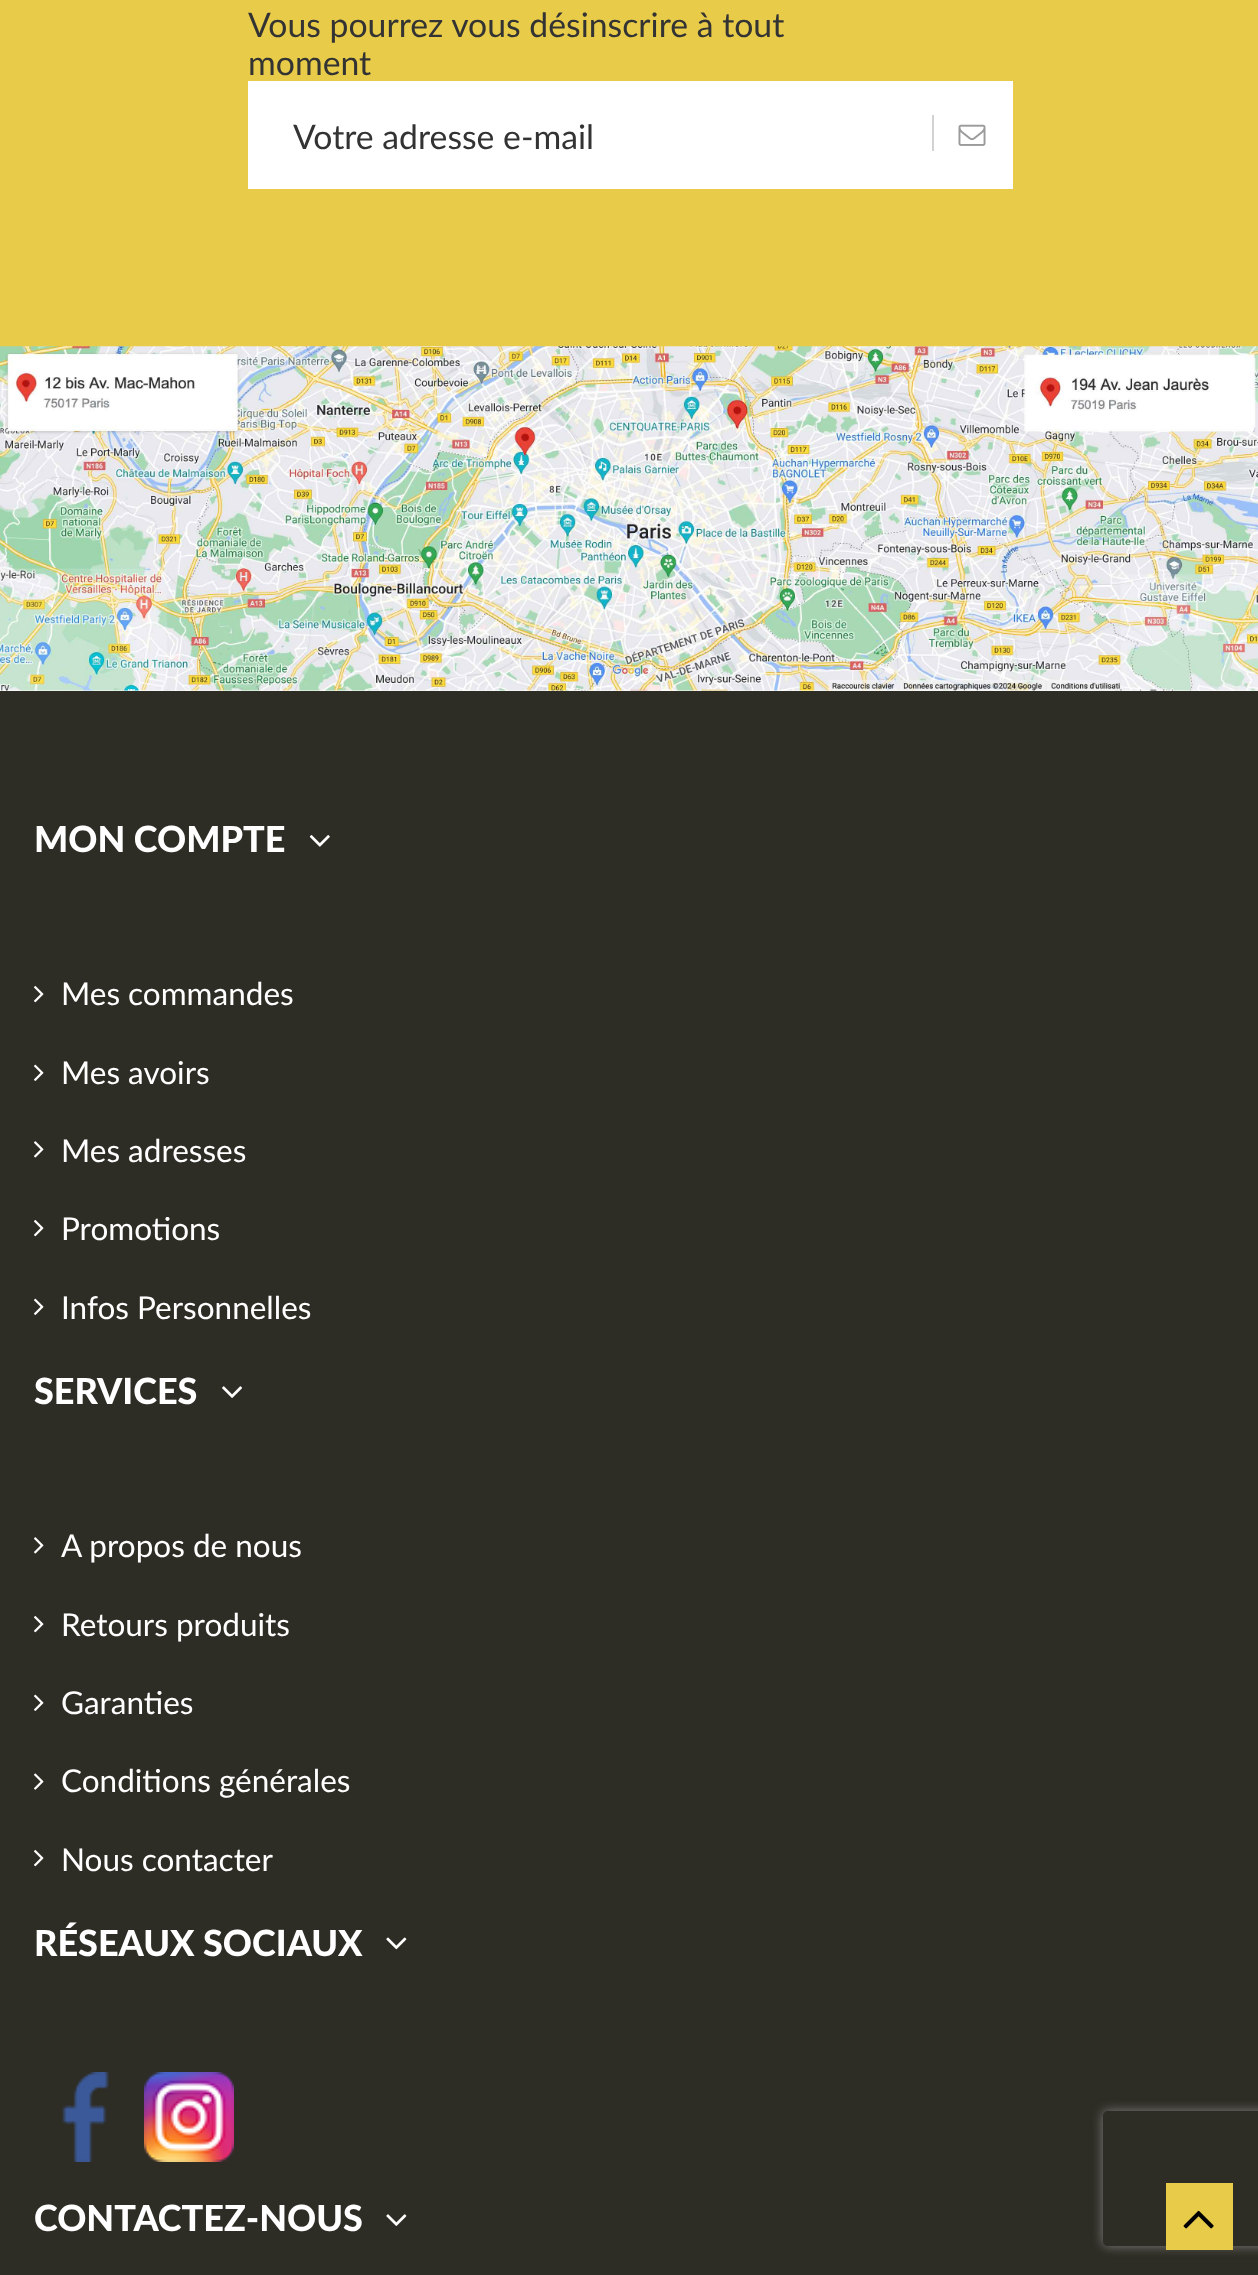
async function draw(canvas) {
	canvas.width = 1258;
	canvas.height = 2275;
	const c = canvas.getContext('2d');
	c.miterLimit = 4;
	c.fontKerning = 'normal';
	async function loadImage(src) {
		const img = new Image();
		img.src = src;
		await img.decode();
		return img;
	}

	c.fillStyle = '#fff';
	c.fillRect(0, 0, 1258, 2275);
	c.fillStyle = '#e8cb49';
	c.fillRect(0, 0, 1258, 347);
	c.font = '33.75px Lato';
	c.fillStyle = '#333';
	c.fillText('Vous pourrez vous désinscrire à tout', 248, 37);
	c.fillText('moment', 248, 75);
	c.fillStyle = '#fff';
	c.fillRect(248, 81, 765, 108);
	c.fillStyle = '#333';
	c.fillText('Votre adresse e-mail', 293, 149);
	c.fillStyle = '#d2d2d2';
	c.fillRect(932, 115, 2, 36);
	c.drawImage(await loadImage('img1.png'), 958, 124, 28, 22);
	c.drawImage(await loadImage('img2.png'), 0, 346, 1258, 345);
	c.fillStyle = '#2e2d25';
	c.fillRect(0, 691, 1258, 1584);
	c.font = '900 36px Lato';
	c.fillStyle = '#fff';
	c.fillText('MON COMPTE', 34, 852);
	c.drawImage(await loadImage('img3.png'), 309, 835, 21, 12);
	c.drawImage(await loadImage('img4.png'), 34, 986, 10, 17);
	c.font = '31.5px Lato';
	c.fillText('Mes commandes', 61, 1005);
	c.drawImage(await loadImage('img5.png'), 34, 1064, 10, 17);
	c.fillText('Mes avoirs', 61, 1084);
	c.drawImage(await loadImage('img6.png'), 34, 1141, 10, 17);
	c.fillText('Mes adresses', 61, 1162);
	c.drawImage(await loadImage('img4.png'), 34, 1220, 10, 17);
	c.fillText('Promotions', 61, 1240);
	c.drawImage(await loadImage('img5.png'), 34, 1298, 10, 17);
	c.fillText('Infos Personnelles', 61, 1319);
	c.font = '900 36px Lato';
	c.fillText('SERVICES', 34, 1404);
	c.drawImage(await loadImage('img7.png'), 222, 1386, 20, 12);
	c.drawImage(await loadImage('img6.png'), 34, 1537, 10, 17);
	c.font = '31.5px Lato';
	c.fillText('A propos de nous', 61, 1557);
	c.drawImage(await loadImage('img4.png'), 34, 1616, 10, 17);
	c.fillText('Retours produits', 61, 1636);
	c.drawImage(await loadImage('img5.png'), 34, 1694, 10, 17);
	c.fillText('Garanties', 61, 1714);
	c.drawImage(await loadImage('img8.png'), 34, 1773, 10, 17);
	c.fillText('Conditions générales', 61, 1792);
	c.drawImage(await loadImage('img4.png'), 34, 1850, 10, 17);
	c.fillText('Nous contacter', 61, 1871);
	c.font = '900 36px Lato';
	c.fillText('RÉSEAUX SOCIAUX', 34, 1956);
	c.drawImage(await loadImage('img9.png'), 386, 1937, 21, 13);
	c.drawImage(await loadImage('img10.png'), 62, 2072, 47, 90);
	c.drawImage(await loadImage('img11.png'), 144, 2072, 90, 90);
	c.fillText('CONTACTEZ-NOUS', 34, 2231);
	c.drawImage(await loadImage('img12.png'), 386, 2214, 21, 12);
	c.save();
	c.beginPath();
	c.moveTo(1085, 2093);
	c.lineTo(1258, 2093);
	c.lineTo(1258, 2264);
	c.lineTo(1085, 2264);
	c.closePath();
	c.moveTo(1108, 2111);
	c.lineTo(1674, 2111);
	c.bezierCurveTo(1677, 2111, 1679, 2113, 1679, 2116);
	c.lineTo(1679, 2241);
	c.bezierCurveTo(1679, 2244, 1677, 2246, 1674, 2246);
	c.lineTo(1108, 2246);
	c.bezierCurveTo(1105, 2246, 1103, 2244, 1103, 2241);
	c.lineTo(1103, 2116);
	c.bezierCurveTo(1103, 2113, 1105, 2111, 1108, 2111);
	c.closePath();
	c.clip('evenodd');
	c.fillStyle = '#808080';
	c.filter = 'blur(5.5px)';
	c.beginPath();
	c.roundRect(1103, 2111, 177, 135, 5);
	c.fill();
	c.filter = 'none';
	c.restore();
	c.fillStyle = '#e8cb49';
	c.fillRect(1166, 2183, 67, 67);
	c.drawImage(await loadImage('img13.png'), 1183, 2210, 31, 19);
}

draw(document.querySelector('canvas'));
